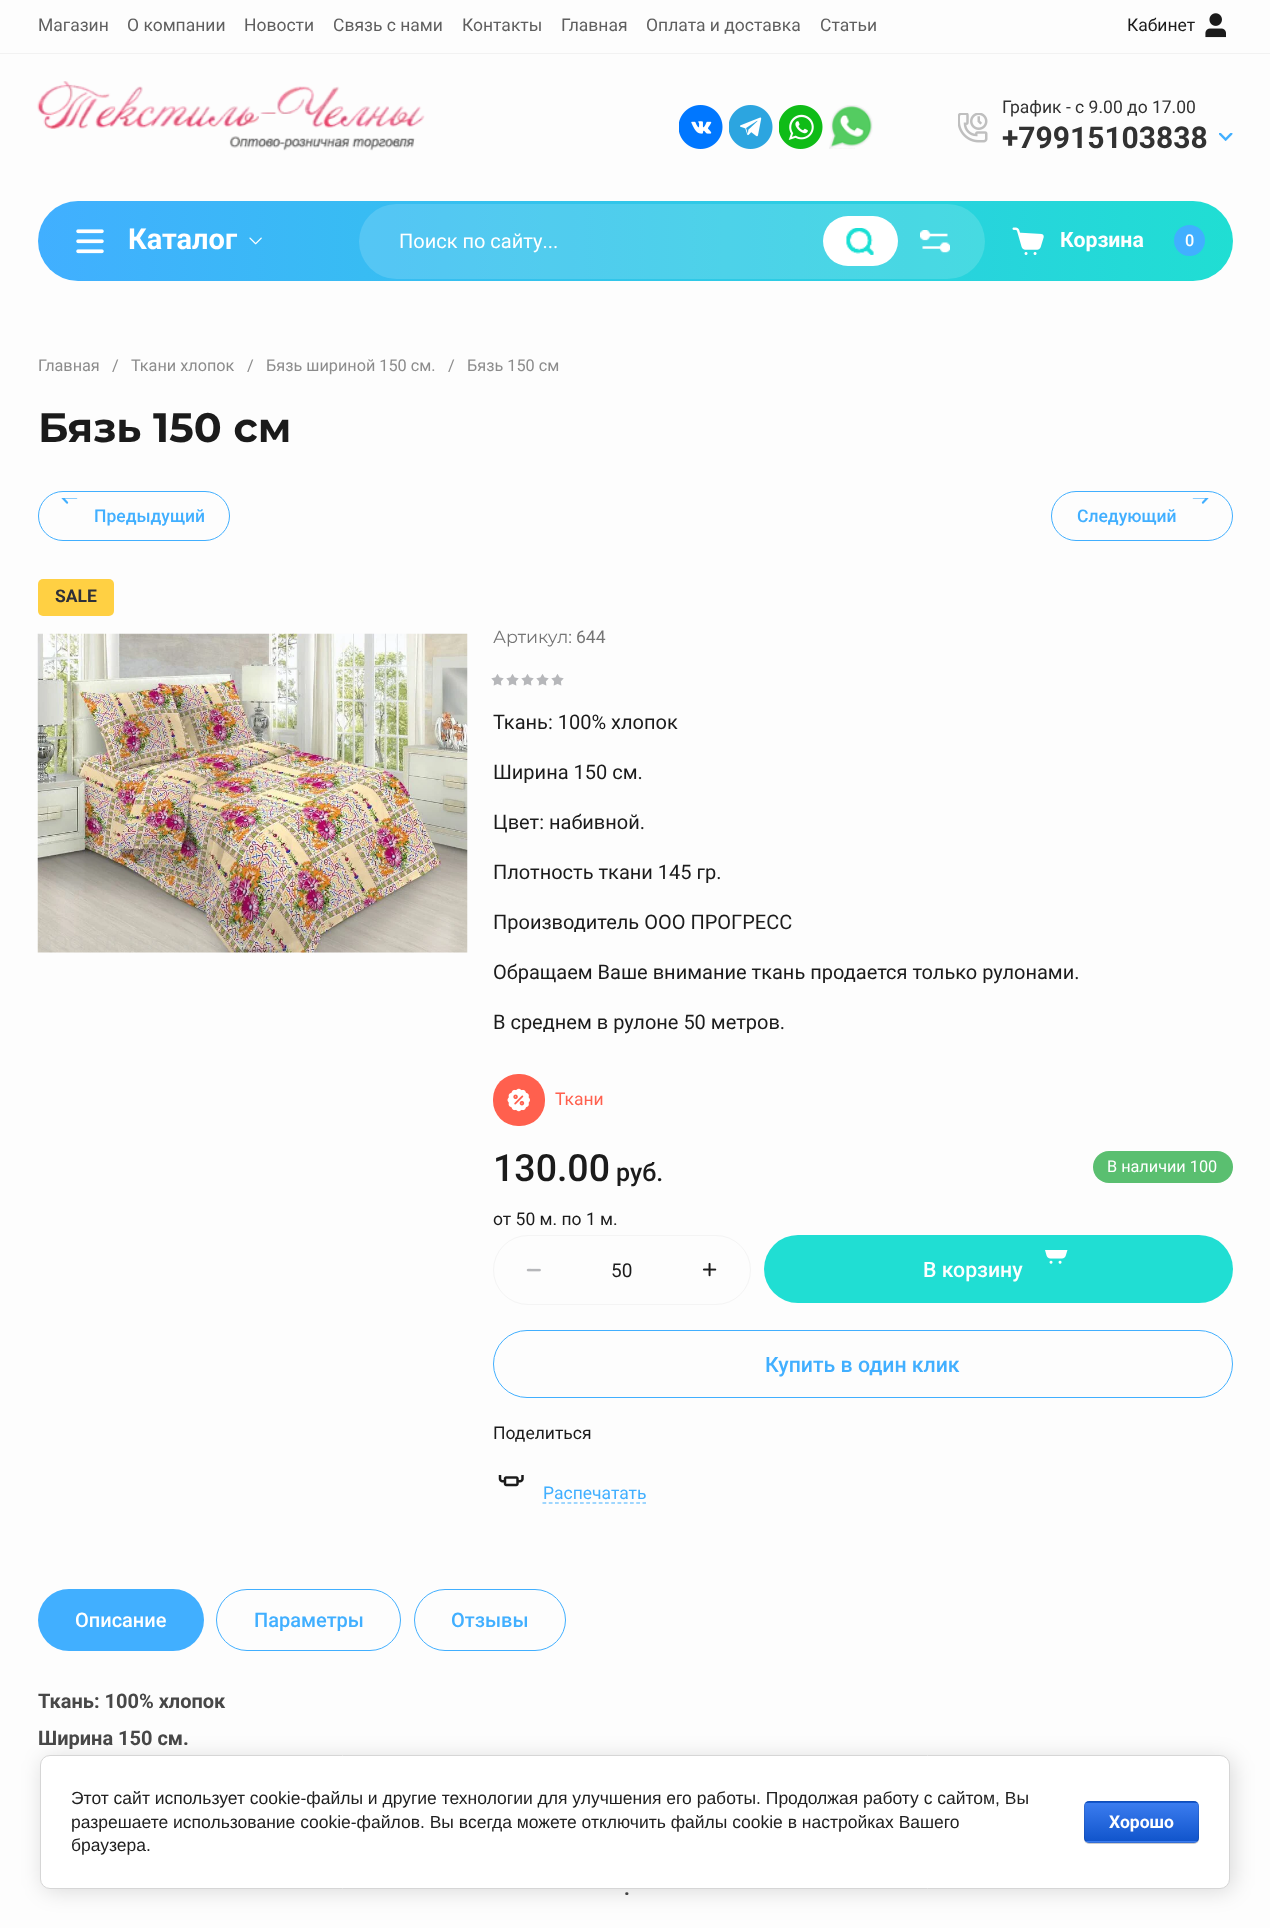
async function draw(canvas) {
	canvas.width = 1270;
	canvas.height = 1928;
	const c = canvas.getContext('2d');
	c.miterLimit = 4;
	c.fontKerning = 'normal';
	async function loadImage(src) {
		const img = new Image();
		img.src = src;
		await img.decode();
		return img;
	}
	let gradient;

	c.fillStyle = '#fdfdfd';
	c.fillRect(0, 0, 1270, 1928);
	c.fillStyle = '#f2f2f2';
	c.fillRect(0, 53, 1270, 1);
	c.font = '17.5px Roboto';
	c.fillStyle = '#5f5f5f';
	for (const [text, x, y] of [
		['Магазин', 38, 31],
		['О компании', 127, 31],
		['Новости', 244, 31],
		['Связь с нами', 333, 31],
		['Контакты', 462, 31],
		['Главная', 561, 31],
		['Оплата и доставка', 646, 31],
		['Статьи', 820, 31],
	]) {
		c.fillText(text, x, y);
	}
	c.fillStyle = '#1b1b1b';
	c.fillText('Кабинет', 1127, 31);
	c.drawImage(await loadImage('img1.png'), 1205, 13, 21, 25);
	c.drawImage(await loadImage('img2.png'), 37, 81, 388, 70);
	c.drawImage(await loadImage('img3.png'), 679, 105, 44, 44);
	c.drawImage(await loadImage('img4.png'), 729, 105, 44, 44);
	c.drawImage(await loadImage('img5.png'), 779, 105, 44, 44);
	c.drawImage(await loadImage('img6.png'), 829, 105, 44, 44);
	c.drawImage(await loadImage('img7.png'), 958, 113, 30, 30);
	c.fillStyle = '#323232';
	c.fillText('График - с 9.00 до 17.00', 1002, 113);
	c.drawImage(await loadImage('img8.png'), 1219, 133, 14, 8);
	c.font = 'bold 30px Roboto';
	c.fillText('+79915103838', 1002, 148);
	gradient = c.createLinearGradient(37, 240, 1233, 243);
	gradient.addColorStop(0, '#41afff');
	gradient.addColorStop(1, '#20ded3');
	c.fillStyle = gradient;
	c.beginPath();
	c.roundRect(38, 201, 1195, 80, 40);
	c.fill();
	c.drawImage(await loadImage('img9.png'), 76, 229, 28, 25);
	c.font = 'bold 29px Roboto';
	c.fillStyle = '#fff';
	c.fillText('Каталог', 128, 249);
	c.drawImage(await loadImage('img10.png'), 249, 237, 13, 8);
	c.fillStyle = '#ffffff26';
	c.beginPath();
	c.roundRect(359, 204, 626, 75, 37.5);
	c.fill();
	c.font = '20px Roboto';
	c.fillStyle = '#fff';
	c.fillText('Поиск по сайту...', 399, 248);
	c.beginPath();
	c.roundRect(823, 216, 75, 50, 25);
	c.fill();
	c.drawImage(await loadImage('img11.png'), 846, 228, 28, 27);
	c.drawImage(await loadImage('img12.png'), 920, 230, 30, 23);
	c.drawImage(await loadImage('img13.png'), 1012, 227, 32, 28);
	c.font = 'bold 21.25px Roboto';
	c.fillText('Корзина', 1060, 247);
	c.fillStyle = '#41afff';
	c.beginPath();
	c.arc(1189.5, 240.5, 15.5, 0, 2 * Math.PI);
	c.fill();
	c.font = '500 16.25px Roboto';
	c.fillStyle = '#fff';
	c.fillText('0', 1185, 246);
	c.font = '16.25px Roboto';
	c.fillStyle = '#8c8c8c';
	for (const [text, x, y] of [
		['Главная', 38, 371],
		['/', 112, 371],
		['Ткани хлопок', 131, 371],
		['/', 247, 371],
		['Бязь шириной 150 см.', 266, 371],
		['/', 448, 371],
		['Бязь 150 см', 467, 371],
	]) {
		c.fillText(text, x, y);
	}
	c.font = 'bold 41.25px Montserrat';
	c.fillStyle = '#1b1b1b';
	c.fillText('Бязь 150 см', 38, 442);
	c.beginPath();
	c.roundRect(38.5, 491.5, 191, 49, 24.5);
	c.strokeStyle = '#41afff';
	c.stroke();
	c.drawImage(await loadImage('img14.png'), 61, 498, 17, 6);
	c.font = '500 17.5px Roboto';
	c.fillStyle = '#41afff';
	c.fillText('Предыдущий', 94, 522);
	c.beginPath();
	c.roundRect(1051.5, 491.5, 181, 49, 24.5);
	c.stroke();
	c.drawImage(await loadImage('img15.png'), 1192, 498, 17, 6);
	c.fillText('Следующий', 1077, 522);
	c.fillStyle = '#ffd043';
	c.beginPath();
	c.roundRect(38, 579, 76, 37, 5);
	c.fill();
	c.font = 'bold 17.5px Roboto';
	c.fillStyle = '#2e2f38';
	c.fillText('SALE', 55, 602);
	c.drawImage(await loadImage('img16.png'), 37, 633, 431, 320);
	c.font = '17.5px Montserrat';
	c.fillStyle = '#757575';
	c.fillText('Артикул:', 493, 643);
	c.font = '17.5px Roboto';
	c.fillText('644', 576, 643);
	c.drawImage(await loadImage('img17.png'), 491, 674, 73, 12);
	c.font = '20px Roboto';
	c.fillStyle = '#1b1b1b';
	for (const [text, x, y] of [
		['Ткань: 100% хлопок', 493, 729],
		['Ширина 150 см.', 493, 779],
		['Цвет: набивной.', 493, 829],
		['Плотность ткани 145 гр.', 493, 879],
		['Производитель ООО ПРОГРЕСС', 493, 929],
		['Обращаем Ваше внимание ткань продается только рулонами.', 493, 979],
		['В среднем в рулоне 50 метров.', 493, 1029],
	]) {
		c.fillText(text, x, y);
	}
	c.fillStyle = '#ff604e';
	c.beginPath();
	c.roundRect(493, 1074, 52, 52, 25);
	c.fill();
	c.drawImage(await loadImage('img18.png'), 507, 1088, 23, 24);
	c.font = '17.5px Roboto';
	c.fillText('Ткани', 555, 1105);
	c.font = '500 37.5px Roboto';
	c.fillStyle = '#1b1b1b';
	c.fillText('130.00', 493, 1181);
	c.font = '500 25px Roboto';
	c.fillText('руб.', 616, 1181);
	c.fillStyle = '#5abf70';
	c.beginPath();
	c.roundRect(1093, 1151, 140, 32, 16);
	c.fill();
	c.font = '16.25px Roboto';
	c.fillStyle = '#fff';
	c.fillText('В наличии 100', 1107, 1172);
	c.font = '17.5px Roboto';
	c.fillStyle = '#1b1b1b';
	c.fillText('от 50 м. по 1 м.', 493, 1225);
	c.beginPath();
	c.roundRect(493.5, 1235.5, 257, 69, 34.5);
	c.strokeStyle = '#f4f4f4';
	c.stroke();
	c.drawImage(await loadImage('img19.png'), 526, 1268, 15, 4);
	c.font = '19px Roboto';
	c.fillText('50', 611, 1277);
	c.drawImage(await loadImage('img20.png'), 702, 1262, 15, 15);
	c.fillStyle = '#20ded3';
	c.beginPath();
	c.roundRect(764, 1235, 469, 68, 34);
	c.fill();
	c.drawImage(await loadImage('img21.png'), 1045, 1250, 23, 14);
	c.font = '500 21.25px Roboto';
	c.fillStyle = '#fff';
	c.fillText('В корзину', 923, 1277);
	c.beginPath();
	c.roundRect(493.5, 1330.5, 739, 67, 33.5);
	c.strokeStyle = '#41afff';
	c.stroke();
	c.fillStyle = '#41afff';
	c.fillText('Купить в один клик', 765, 1372);
	c.font = '17.5px Roboto';
	c.fillStyle = '#1b1b1b';
	c.fillText('Поделиться', 493, 1439);
	c.drawImage(await loadImage('img22.png'), 498, 1475, 26, 12);
	c.fillStyle = '#41afff';
	c.fillText('Распечатать', 543, 1499);
	c.beginPath();
	c.moveTo(542.5, 1503);
	c.lineTo(646, 1503);
	c.lineWidth = 1.2;
	c.setLineDash([3.75, 2.5]);
	c.stroke();
	c.beginPath();
	c.roundRect(38, 1589, 166, 62, 31);
	c.fill();
	c.font = '500 20px Roboto';
	c.fillStyle = '#fff';
	c.fillText('Описание', 75, 1627);
	c.beginPath();
	c.roundRect(216.5, 1589.5, 184, 61, 30.5);
	c.lineWidth = 1;
	c.setLineDash([]);
	c.stroke();
	c.fillStyle = '#41afff';
	c.fillText('Параметры', 254, 1627);
	c.beginPath();
	c.roundRect(414.5, 1589.5, 151, 61, 30.5);
	c.stroke();
	c.fillText('Отзывы', 451, 1627);
	c.font = 'bold 20px Roboto';
	c.fillStyle = '#484848';
	for (const [text, x, y] of [
		['Ткань: 100% хлопок', 38, 1708],
		['Ширина 150 см.', 38, 1745],
		['.', 624, 1895],
	]) {
		c.fillText(text, x, y);
	}
	c.fillStyle = '#00000024';
	c.filter = 'blur(11px)';
	c.beginPath();
	c.roundRect(43, 1758, 1190, 133, 10);
	c.fill();
	c.filter = 'none';
	c.fillStyle = '#fff';
	c.beginPath();
	c.roundRect(40.5, 1755.5, 1189, 133, 9.5);
	c.fill();
	c.strokeStyle = '#d6d6d6';
	c.stroke();
	c.font = '17.5px Liberation Sans';
	c.fillStyle = '#212121';
	for (const [text, x, y] of [
		['Этот сайт использует cookie-файлы и другие технологии для улучшения его работы. Продолжая работу с сайтом, Вы', 71, 1804],
		['разрешаете использование cookie-файлов. Вы всегда можете отключить файлы cookie в настройках Вашего', 71, 1828],
		['браузера.', 71, 1851],
	]) {
		c.fillText(text, x, y);
	}
	c.fillStyle = '#00000033';
	c.filter = 'blur(0.5px)';
	c.beginPath();
	c.roundRect(1084, 1803, 115, 41, 5);
	c.fill();
	c.filter = 'none';
	c.save();
	c.beginPath();
	c.roundRect(1084, 1801, 115, 42, 5);
	c.clip();
	gradient = c.createLinearGradient(1141, 1764, 1141, 1803);
	gradient.addColorStop(0, '#3b7cef');
	gradient.addColorStop(1, '#15c');
	c.fillStyle = gradient;
	c.fillRect(1084, 1801, 115, 2);
	gradient = c.createLinearGradient(1141, 1803, 1141, 1841);
	gradient.addColorStop(0, '#3b7cef');
	gradient.addColorStop(1, '#15c');
	c.fillStyle = gradient;
	c.fillRect(1084, 1803, 115, 38);
	gradient = c.createLinearGradient(1141, 1841, 1141, 1880);
	gradient.addColorStop(0, '#3b7cef');
	gradient.addColorStop(1, '#15c');
	c.fillStyle = gradient;
	c.fillRect(1084, 1841, 115, 2);
	c.restore();
	c.beginPath();
	c.roundRect(1084.5, 1801.5, 114, 41, 4.5);
	c.strokeStyle = '#0000001a';
	c.stroke();
	c.font = 'bold 17.5px Roboto';
	c.fillStyle = '#fff';
	c.fillText('Хорошо', 1109, 1828);
}

draw(document.querySelector('canvas'));
